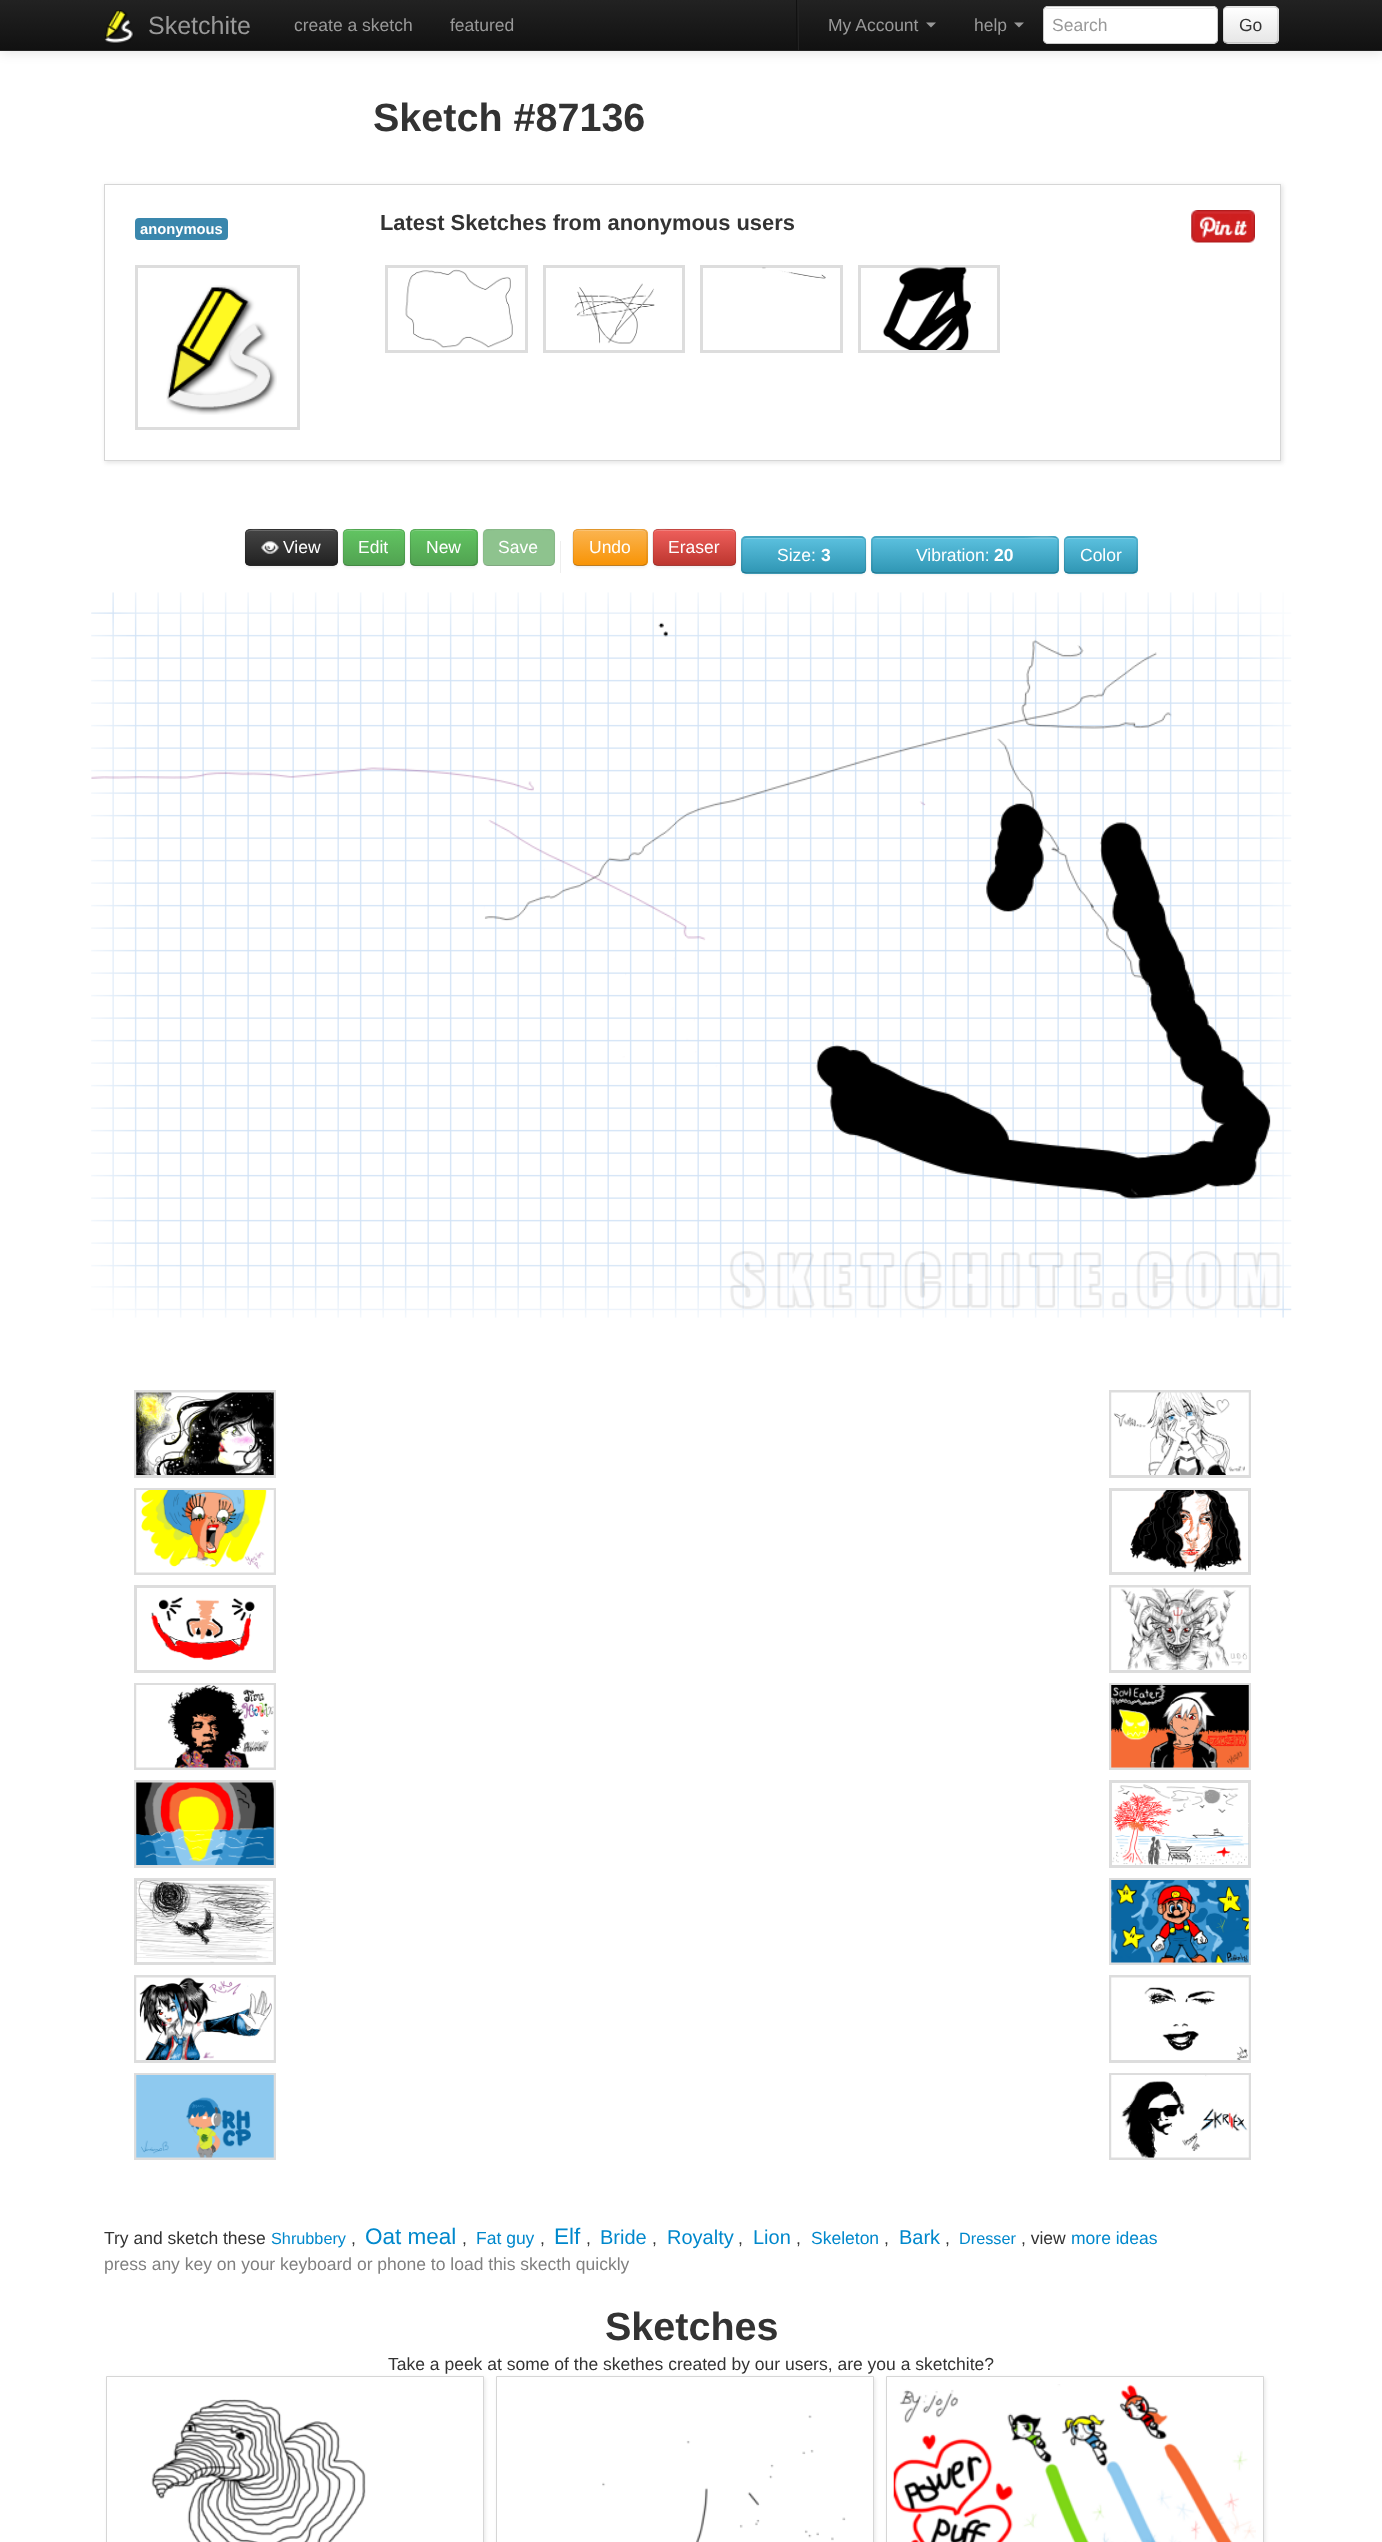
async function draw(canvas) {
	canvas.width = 1382;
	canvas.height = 2542;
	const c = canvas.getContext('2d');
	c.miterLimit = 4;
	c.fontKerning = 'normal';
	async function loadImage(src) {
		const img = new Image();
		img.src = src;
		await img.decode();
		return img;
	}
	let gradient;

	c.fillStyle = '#fff';
	c.fillRect(0, 0, 1382, 2542);
	c.fillStyle = '#0000001a';
	c.filter = 'blur(6px)';
	c.beginPath();
	c.rect(0, 1, 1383, 52);
	c.fill();
	c.filter = 'none';
	gradient = c.createLinearGradient(691, 0, 691, 50);
	gradient.addColorStop(0, '#222');
	gradient.addColorStop(1, '#111');
	c.fillStyle = gradient;
	c.fillRect(0, 0, 1382, 50);
	c.fillStyle = '#252525';
	c.fillRect(0, 50, 1382, 1);
	c.drawImage(await loadImage('img1.png'), 104, 10, 30, 34);
	c.font = '25px Liberation Sans';
	c.fillStyle = '#999';
	c.fillText('Sketchite', 148, 34);
	c.font = '17.5px Liberation Sans';
	c.fillText('create a sketch', 294, 31);
	c.fillText('featured', 450, 31);
	c.fillStyle = '#222';
	c.fillRect(798, 0, 1, 50);
	c.fillStyle = '#111';
	c.fillRect(796, 0, 1, 50);
	c.fillStyle = '#999';
	c.fillText('My Account', 828, 31);
	c.beginPath();
	c.moveTo(926, 22.5);
	c.lineTo(936, 22.5);
	c.lineTo(931, 27.5);
	c.closePath();
	c.fill();
	c.fillText('help', 974, 31);
	c.beginPath();
	c.moveTo(1014, 22.5);
	c.lineTo(1024, 22.5);
	c.lineTo(1019, 27.5);
	c.closePath();
	c.fill();
	c.fillStyle = '#fff';
	c.beginPath();
	c.roundRect(1043, 6, 175, 38, 5);
	c.fill();
	c.fillStyle = '#ececec';
	c.beginPath();
	c.moveTo(1048, 9);
	c.lineTo(1214, 9);
	c.lineTo(1216, 10);
	c.bezierCurveTo(1215, 9, 1214, 8, 1212, 8);
	c.lineTo(1048, 8);
	c.bezierCurveTo(1046, 8, 1045, 9, 1044, 10);
	c.bezierCurveTo(1045, 9, 1046, 9, 1048, 9);
	c.closePath();
	c.fill();
	c.beginPath();
	c.roundRect(1043.5, 6.5, 174, 37, 4.5);
	c.strokeStyle = '#ccc';
	c.stroke();
	c.fillStyle = '#999';
	c.fillText('Search', 1052, 31);
	c.fillStyle = '#f5f5f5';
	c.beginPath();
	c.roundRect(1223, 6, 56, 38, 5);
	c.fill();
	c.save();
	c.beginPath();
	c.roundRect(1223, 6, 56, 38, 5);
	c.clip();
	gradient = c.createLinearGradient(1251, 7.5, 1251, 43);
	gradient.addColorStop(0, '#fff');
	gradient.addColorStop(1, '#e6e6e6');
	c.fillStyle = gradient;
	c.fillRect(1223, 8, 56, 35);
	c.restore();
	c.beginPath();
	c.moveTo(1277, 42);
	c.bezierCurveTo(1276, 42.5, 1275, 43, 1274, 43);
	c.lineTo(1227.5, 43);
	c.bezierCurveTo(1226.5, 43, 1225, 42.5, 1224.5, 42);
	c.strokeStyle = '#00000040';
	c.lineWidth = 1.2;
	c.stroke();
	c.beginPath();
	c.moveTo(1224.5, 42);
	c.bezierCurveTo(1223.5, 41, 1223, 40, 1223, 39);
	c.lineTo(1223, 11.5);
	c.bezierCurveTo(1223, 10, 1223.5, 9, 1224.5, 8);
	c.bezierCurveTo(1225, 7.5, 1226.5, 7, 1227.5, 7);
	c.lineTo(1274, 7);
	c.bezierCurveTo(1275, 7, 1276, 7.5, 1277, 8);
	c.bezierCurveTo(1277.5, 9, 1278, 10, 1278, 11);
	c.lineTo(1278, 39);
	c.bezierCurveTo(1278, 40, 1277.5, 41, 1277, 42);
	c.strokeStyle = '#00000026';
	c.stroke();
	c.fillStyle = '#333';
	c.fillText('Go', 1239, 31);
	c.font = 'bold 39.5px Liberation Sans';
	c.fillText('Sketch #87136', 373, 131);
	c.save();
	c.beginPath();
	c.moveTo(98, 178);
	c.lineTo(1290, 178);
	c.lineTo(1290, 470);
	c.lineTo(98, 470);
	c.closePath();
	c.moveTo(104, 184);
	c.lineTo(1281, 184);
	c.lineTo(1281, 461);
	c.lineTo(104, 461);
	c.closePath();
	c.clip('evenodd');
	c.fillStyle = '#0000001a';
	c.filter = 'blur(2px)';
	c.beginPath();
	c.rect(105, 185, 1178, 278);
	c.fill();
	c.filter = 'none';
	c.restore();
	c.strokeStyle = '#d6d6d6';
	c.lineWidth = 1;
	c.strokeRect(104.5, 184.5, 1176, 276);
	c.fillStyle = '#3a87ad';
	c.beginPath();
	c.roundRect(135, 218, 93, 22, 4);
	c.fill();
	c.font = 'bold 14.75px Liberation Sans';
	c.fillStyle = '#fff';
	c.fillText('anonymous', 140, 234);
	c.strokeStyle = '#ddd';
	c.lineWidth = 3;
	c.strokeRect(136.5, 266.5, 162, 162);
	c.drawImage(await loadImage('img2.png'), 166, 285, 111, 130);
	c.font = 'bold 21.9px Liberation Sans';
	c.fillStyle = '#333';
	c.fillText('Latest Sketches from anonymous users', 380, 230);
	c.drawImage(await loadImage('img3.png'), 1191, 210, 64, 33);
	c.strokeRect(386.5, 266.5, 140, 85);
	c.drawImage(await loadImage('img4.png'), 405, 269, 108, 79);
	c.strokeRect(544.5, 266.5, 139, 85);
	c.drawImage(await loadImage('img5.png'), 574, 283, 81, 61);
	c.strokeRect(701.5, 266.5, 140, 85);
	c.drawImage(await loadImage('img6.png'), 762, 267, 64, 12);
	c.strokeRect(859.5, 266.5, 139, 85);
	c.drawImage(await loadImage('img7.png'), 882, 267, 94, 83);
	c.fillStyle = '#0000000d';
	c.filter = 'blur(1px)';
	c.beginPath();
	c.roundRect(245, 530, 93, 38, 5);
	c.fill();
	c.filter = 'none';
	c.fillStyle = '#363636';
	c.beginPath();
	c.roundRect(245, 529, 93, 37, 5);
	c.fill();
	c.save();
	c.beginPath();
	c.roundRect(245, 529, 93, 37, 5);
	c.clip();
	gradient = c.createLinearGradient(291, 530, 291, 565);
	gradient.addColorStop(0, '#444');
	gradient.addColorStop(1, '#222');
	c.fillStyle = gradient;
	c.fillRect(245, 530, 93, 35);
	c.restore();
	c.fillStyle = '#ffffff33';
	c.beginPath();
	c.moveTo(250, 531);
	c.lineTo(332, 531);
	c.bezierCurveTo(335, 531, 336, 533, 336, 535);
	c.bezierCurveTo(336, 527, 323, 530, 318, 530);
	c.lineTo(264, 530);
	c.bezierCurveTo(259, 530, 246, 527, 246, 535);
	c.bezierCurveTo(246, 533, 248, 531, 250, 531);
	c.closePath();
	c.fill();
	c.beginPath();
	c.moveTo(335.5, 564.5);
	c.lineTo(333, 565.5);
	c.lineTo(249.5, 565.5);
	c.lineTo(247, 564.5);
	c.strokeStyle = '#00000040';
	c.lineWidth = 1.2;
	c.stroke();
	c.beginPath();
	c.moveTo(247, 564.5);
	c.bezierCurveTo(245, 562.5, 245.5, 559, 245.5, 556.5);
	c.lineTo(245.5, 547.5);
	c.bezierCurveTo(245.5, 527, 242.5, 529.5, 264, 529.5);
	c.lineTo(319, 529.5);
	c.bezierCurveTo(340, 529.5, 337, 527, 337, 547.5);
	c.lineTo(337, 556.5);
	c.bezierCurveTo(337, 559, 337.5, 562.5, 335.5, 564.5);
	c.strokeStyle = '#0000001a';
	c.stroke();
	c.drawImage(await loadImage('img8.png'), 261, 541, 18, 13);
	c.font = '17.5px Liberation Sans';
	c.fillStyle = '#fff';
	c.fillText('View', 283, 553);
	c.fillStyle = '#0000000d';
	c.filter = 'blur(1px)';
	c.beginPath();
	c.roundRect(343, 530, 62, 38, 5);
	c.fill();
	c.filter = 'none';
	c.fillStyle = '#5bb75b';
	c.beginPath();
	c.roundRect(343, 529, 62, 37, 5);
	c.fill();
	c.save();
	c.beginPath();
	c.roundRect(343, 529, 62, 37, 5);
	c.clip();
	gradient = c.createLinearGradient(374, 530, 374, 565);
	gradient.addColorStop(0, '#62c462');
	gradient.addColorStop(1, '#51a351');
	c.fillStyle = gradient;
	c.fillRect(343, 530, 62, 35);
	c.restore();
	c.fillStyle = '#81d081';
	c.beginPath();
	c.moveTo(348, 531);
	c.lineTo(400, 531);
	c.bezierCurveTo(402, 531, 404, 533, 404, 535);
	c.bezierCurveTo(404, 528, 396, 530, 391, 530);
	c.lineTo(357, 530);
	c.bezierCurveTo(352, 530, 344, 528, 344, 535);
	c.bezierCurveTo(344, 533, 345, 531, 348, 531);
	c.closePath();
	c.fill();
	c.beginPath();
	c.moveTo(403, 564.5);
	c.bezierCurveTo(402.5, 565, 401, 565.5, 400, 565.5);
	c.lineTo(347.5, 565.5);
	c.bezierCurveTo(346.5, 565.5, 345, 565, 344.5, 564.5);
	c.strokeStyle = '#00000040';
	c.stroke();
	c.beginPath();
	c.moveTo(344.5, 564.5);
	c.bezierCurveTo(342.5, 562.5, 343, 559, 343, 556.5);
	c.lineTo(343, 547.5);
	c.bezierCurveTo(343, 530, 339.5, 529.5, 356, 529.5);
	c.lineTo(391, 529.5);
	c.bezierCurveTo(408, 529.5, 404.5, 530, 404.5, 547.5);
	c.lineTo(404.5, 556.5);
	c.bezierCurveTo(404.5, 559, 405, 562.5, 403, 564.5);
	c.strokeStyle = '#0000001a';
	c.stroke();
	c.fillStyle = '#fff';
	c.fillText('Edit', 358, 553);
	c.fillStyle = '#0000000d';
	c.filter = 'blur(1px)';
	c.beginPath();
	c.roundRect(410, 530, 68, 38, 5);
	c.fill();
	c.filter = 'none';
	c.fillStyle = '#5bb75b';
	c.beginPath();
	c.roundRect(410, 529, 68, 37, 5);
	c.fill();
	c.save();
	c.beginPath();
	c.roundRect(410, 529, 68, 37, 5);
	c.clip();
	gradient = c.createLinearGradient(444, 530, 444, 565);
	gradient.addColorStop(0, '#62c462');
	gradient.addColorStop(1, '#51a351');
	c.fillStyle = gradient;
	c.fillRect(410, 530, 68, 35);
	c.restore();
	c.fillStyle = '#81d081';
	c.beginPath();
	c.moveTo(415, 531);
	c.lineTo(472, 531);
	c.bezierCurveTo(475, 531, 476, 533, 476, 535);
	c.bezierCurveTo(476, 528, 468, 530, 462, 530);
	c.lineTo(424, 530);
	c.bezierCurveTo(419, 530, 411, 528, 411, 535);
	c.bezierCurveTo(411, 533, 413, 531, 415, 531);
	c.closePath();
	c.fill();
	c.beginPath();
	c.moveTo(475.5, 564.5);
	c.bezierCurveTo(475, 565, 473.5, 565.5, 472.5, 565.5);
	c.lineTo(415, 565.5);
	c.bezierCurveTo(414, 565.5, 412.5, 565, 412, 564.5);
	c.strokeStyle = '#00000040';
	c.stroke();
	c.beginPath();
	c.moveTo(412, 564.5);
	c.bezierCurveTo(410, 562.5, 410.5, 559, 410.5, 556.5);
	c.lineTo(410.5, 547.5);
	c.bezierCurveTo(410.5, 529.5, 407, 529.5, 424.5, 529.5);
	c.lineTo(463, 529.5);
	c.bezierCurveTo(480.5, 529.5, 477, 529.5, 477, 547.5);
	c.lineTo(477, 556.5);
	c.bezierCurveTo(477, 559, 477.5, 562.5, 475.5, 564.5);
	c.strokeStyle = '#0000001a';
	c.stroke();
	c.fillStyle = '#fff';
	c.fillText('New', 426, 553);
	c.fillStyle = '#8ec38e';
	c.beginPath();
	c.roundRect(483, 529, 72, 37, 5);
	c.fill();
	c.beginPath();
	c.moveTo(553, 564.5);
	c.lineTo(550.5, 565.5);
	c.lineTo(487, 565.5);
	c.lineTo(484.5, 564.5);
	c.strokeStyle = '#59595940';
	c.stroke();
	c.beginPath();
	c.moveTo(484.5, 564.5);
	c.bezierCurveTo(482.5, 562.5, 483, 559, 483, 556.5);
	c.lineTo(483, 547.5);
	c.bezierCurveTo(483, 529, 479.5, 529.5, 498, 529.5);
	c.lineTo(539.5, 529.5);
	c.bezierCurveTo(558, 529.5, 554.5, 529, 554.5, 547.5);
	c.lineTo(554.5, 556.5);
	c.bezierCurveTo(554.5, 559, 555, 562.5, 553, 564.5);
	c.strokeStyle = '#5959591a';
	c.stroke();
	c.fillStyle = '#fff';
	c.fillText('Save', 498, 553);
	c.fillStyle = '#eee';
	c.fillRect(560, 541, 1, 32);
	c.fillStyle = '#0000000d';
	c.filter = 'blur(1px)';
	c.beginPath();
	c.roundRect(573, 530, 75, 38, 5);
	c.fill();
	c.filter = 'none';
	c.fillStyle = '#faa732';
	c.beginPath();
	c.roundRect(573, 529, 75, 37, 5);
	c.fill();
	c.save();
	c.beginPath();
	c.roundRect(573, 529, 75, 37, 5);
	c.clip();
	gradient = c.createLinearGradient(610, 530, 610, 565);
	gradient.addColorStop(0, '#fbb450');
	gradient.addColorStop(1, '#f89406');
	c.fillStyle = gradient;
	c.fillRect(573, 530, 75, 35);
	c.restore();
	c.fillStyle = '#ffffff33';
	c.beginPath();
	c.moveTo(578, 531);
	c.lineTo(642, 531);
	c.bezierCurveTo(645, 531, 646, 533, 646, 535);
	c.bezierCurveTo(646, 527, 636, 530, 631, 530);
	c.lineTo(589, 530);
	c.bezierCurveTo(584, 530, 574, 527, 574, 535);
	c.bezierCurveTo(574, 533, 575, 531, 578, 531);
	c.closePath();
	c.fill();
	c.beginPath();
	c.moveTo(645.5, 564.5);
	c.lineTo(643, 565.5);
	c.lineTo(577, 565.5);
	c.lineTo(574.5, 564.5);
	c.strokeStyle = '#00000040';
	c.stroke();
	c.beginPath();
	c.moveTo(574.5, 564.5);
	c.bezierCurveTo(572.5, 562.5, 573, 559, 573, 556.5);
	c.lineTo(573, 547.5);
	c.bezierCurveTo(573, 528.5, 570, 529.5, 588.5, 529.5);
	c.lineTo(631.5, 529.5);
	c.bezierCurveTo(650, 529.5, 647, 528.5, 647, 547.5);
	c.lineTo(647, 556.5);
	c.bezierCurveTo(647, 559, 647.5, 562.5, 645.5, 564.5);
	c.strokeStyle = '#0000001a';
	c.stroke();
	c.fillStyle = '#fff';
	c.fillText('Undo', 589, 553);
	c.fillStyle = '#0000000d';
	c.filter = 'blur(1px)';
	c.beginPath();
	c.roundRect(653, 530, 83, 38, 5);
	c.fill();
	c.filter = 'none';
	c.fillStyle = '#da4f49';
	c.beginPath();
	c.roundRect(653, 529, 83, 37, 5);
	c.fill();
	c.save();
	c.beginPath();
	c.roundRect(653, 529, 83, 37, 5);
	c.clip();
	gradient = c.createLinearGradient(694, 530, 694, 565);
	gradient.addColorStop(0, '#ee5f5b');
	gradient.addColorStop(1, '#bd362f');
	c.fillStyle = gradient;
	c.fillRect(653, 530, 83, 35);
	c.restore();
	c.fillStyle = '#ffffff33';
	c.beginPath();
	c.moveTo(658, 531);
	c.lineTo(731, 531);
	c.bezierCurveTo(733, 531, 735, 533, 735, 535);
	c.bezierCurveTo(735, 527, 724, 530, 719, 530);
	c.lineTo(670, 530);
	c.bezierCurveTo(665, 530, 654, 527, 654, 535);
	c.bezierCurveTo(654, 533, 655, 531, 658, 531);
	c.closePath();
	c.fill();
	c.beginPath();
	c.moveTo(734.5, 564.5);
	c.lineTo(731.5, 565.5);
	c.lineTo(657, 565.5);
	c.lineTo(654.5, 564.5);
	c.strokeStyle = '#00000040';
	c.stroke();
	c.beginPath();
	c.moveTo(654.5, 564.5);
	c.bezierCurveTo(652.5, 562.5, 653, 559, 653, 556.5);
	c.lineTo(653, 547.5);
	c.bezierCurveTo(653, 527.5, 650, 529.5, 670, 529.5);
	c.lineTo(719, 529.5);
	c.bezierCurveTo(739, 529.5, 735.5, 527.5, 735.5, 547.5);
	c.lineTo(735.5, 556.5);
	c.bezierCurveTo(735.5, 559, 736.5, 562.5, 734.5, 564.5);
	c.strokeStyle = '#0000001a';
	c.stroke();
	c.fillStyle = '#fff';
	c.fillText('Eraser', 668, 553);
	c.fillStyle = '#0000000d';
	c.filter = 'blur(1px)';
	c.beginPath();
	c.roundRect(741, 538, 125, 37, 5);
	c.fill();
	c.filter = 'none';
	c.fillStyle = '#49afcd';
	c.beginPath();
	c.roundRect(741, 536, 125, 38, 5);
	c.fill();
	c.save();
	c.beginPath();
	c.roundRect(741, 536, 125, 38, 5);
	c.clip();
	gradient = c.createLinearGradient(804, 538, 804, 573);
	gradient.addColorStop(0, '#5bc0de');
	gradient.addColorStop(1, '#2f96b4');
	c.fillStyle = gradient;
	c.fillRect(741, 538, 125, 35);
	c.restore();
	c.fillStyle = '#7bcce4';
	c.beginPath();
	c.moveTo(746, 539);
	c.lineTo(861, 539);
	c.bezierCurveTo(863, 539, 865, 540, 865, 542);
	c.lineTo(864, 540);
	c.lineTo(862, 538);
	c.lineTo(747, 538);
	c.lineTo(744, 539);
	c.closePath();
	c.fill();
	c.beginPath();
	c.moveTo(864.5, 572);
	c.lineTo(861.5, 573);
	c.lineTo(765.5, 573);
	c.lineTo(746, 573);
	c.lineTo(743, 572);
	c.strokeStyle = '#00000040';
	c.stroke();
	c.beginPath();
	c.moveTo(743, 572);
	c.bezierCurveTo(740.5, 569, 742, 562.5, 742, 559.5);
	c.bezierCurveTo(742, 533, 737.5, 537, 765.5, 537);
	c.lineTo(842, 537);
	c.bezierCurveTo(870, 537, 865.5, 533, 865.5, 559.5);
	c.bezierCurveTo(865.5, 562.5, 867, 569, 864.5, 572);
	c.strokeStyle = '#0000001a';
	c.stroke();
	c.fillStyle = '#fff';
	c.fillText('Size:', 777, 561);
	c.font = 'bold 17.5px Liberation Sans';
	c.fillText('3', 821, 561);
	c.fillStyle = '#0000000d';
	c.filter = 'blur(1px)';
	c.beginPath();
	c.roundRect(871, 538, 188, 37, 5);
	c.fill();
	c.filter = 'none';
	c.fillStyle = '#49afcd';
	c.beginPath();
	c.roundRect(871, 536, 188, 38, 5);
	c.fill();
	c.save();
	c.beginPath();
	c.roundRect(871, 536, 188, 38, 5);
	c.clip();
	gradient = c.createLinearGradient(965, 538, 965, 573);
	gradient.addColorStop(0, '#5bc0de');
	gradient.addColorStop(1, '#2f96b4');
	c.fillStyle = gradient;
	c.fillRect(871, 538, 188, 35);
	c.restore();
	c.fillStyle = '#ffffff33';
	c.beginPath();
	c.moveTo(876, 539);
	c.lineTo(1054, 539);
	c.bezierCurveTo(1056, 539, 1058, 540, 1058, 542);
	c.bezierCurveTo(1058, 533, 1030, 538, 1024, 538);
	c.lineTo(877, 538);
	c.lineTo(874, 539);
	c.closePath();
	c.fill();
	c.beginPath();
	c.moveTo(1057, 572);
	c.bezierCurveTo(1056, 572.5, 1055, 573, 1054, 573);
	c.lineTo(876, 573);
	c.bezierCurveTo(875, 573, 874, 572.5, 873, 572);
	c.strokeStyle = '#00000040';
	c.stroke();
	c.beginPath();
	c.moveTo(873, 572);
	c.bezierCurveTo(872.5, 571, 872, 570, 872, 569);
	c.lineTo(872, 541);
	c.bezierCurveTo(872, 540, 872.5, 539, 873, 538);
	c.bezierCurveTo(874, 537.5, 875, 537, 876, 537);
	c.lineTo(1054, 537);
	c.bezierCurveTo(1055, 537, 1056, 537.5, 1057, 538);
	c.bezierCurveTo(1057.5, 539, 1058, 540, 1058, 541);
	c.lineTo(1058, 569);
	c.bezierCurveTo(1058, 570, 1057.5, 571, 1057, 572);
	c.strokeStyle = '#0000001a';
	c.stroke();
	c.font = '17.5px Liberation Sans';
	c.fillStyle = '#fff';
	c.fillText('Vibration:', 916, 561);
	c.font = 'bold 17.5px Liberation Sans';
	c.fillText('20', 994, 561);
	c.fillStyle = '#0000000d';
	c.filter = 'blur(1px)';
	c.beginPath();
	c.roundRect(1064, 538, 74, 37, 5);
	c.fill();
	c.filter = 'none';
	c.fillStyle = '#49afcd';
	c.beginPath();
	c.roundRect(1064, 536, 74, 38, 5);
	c.fill();
	c.save();
	c.beginPath();
	c.roundRect(1064, 536, 74, 38, 5);
	c.clip();
	gradient = c.createLinearGradient(1101, 538, 1101, 573);
	gradient.addColorStop(0, '#5bc0de');
	gradient.addColorStop(1, '#2f96b4');
	c.fillStyle = gradient;
	c.fillRect(1064, 538, 74, 35);
	c.restore();
	c.fillStyle = '#7bcce4';
	c.beginPath();
	c.moveTo(1069, 539);
	c.lineTo(1133, 539);
	c.lineTo(1136, 540);
	c.bezierCurveTo(1135, 539, 1134, 538, 1132, 538);
	c.lineTo(1069, 538);
	c.bezierCurveTo(1067, 538, 1065, 540, 1065, 542);
	c.bezierCurveTo(1065, 540, 1067, 539, 1069, 539);
	c.closePath();
	c.fill();
	c.beginPath();
	c.moveTo(1135.5, 572);
	c.lineTo(1133, 573);
	c.lineTo(1068.5, 573);
	c.lineTo(1065.5, 572);
	c.strokeStyle = '#00000040';
	c.stroke();
	c.beginPath();
	c.moveTo(1065.5, 572);
	c.bezierCurveTo(1063.5, 570, 1064.5, 566.5, 1064.5, 564);
	c.lineTo(1064.5, 555);
	c.bezierCurveTo(1064.5, 536, 1061, 537, 1079.5, 537);
	c.lineTo(1122, 537);
	c.bezierCurveTo(1140.5, 537, 1137, 536, 1137, 555);
	c.lineTo(1137, 564);
	c.bezierCurveTo(1137, 566.5, 1137.5, 570, 1135.5, 572);
	c.strokeStyle = '#0000001a';
	c.stroke();
	c.font = '17.5px Liberation Sans';
	c.fillStyle = '#fff';
	c.fillText('Color', 1080, 561);
	c.drawImage(await loadImage('img9.png'), 91, 592, 1201, 726);
	c.drawImage(await loadImage('img10.png'), 91, 622, 1180, 577);
	c.strokeStyle = '#ddd';
	c.lineWidth = 3;
	c.strokeRect(135.5, 1391.5, 139, 85);
	c.drawImage(await loadImage('img11.png'), 136, 1392, 138, 83);
	c.strokeRect(135.5, 1489.5, 139, 84);
	c.drawImage(await loadImage('img12.png'), 136, 1490, 138, 83);
	c.strokeRect(135.5, 1586.5, 139, 85);
	c.drawImage(await loadImage('img13.png'), 151, 1597, 104, 63);
	c.strokeRect(135.5, 1684.5, 139, 84);
	c.drawImage(await loadImage('img14.png'), 136, 1685, 138, 83);
	c.strokeRect(135.5, 1781.5, 139, 85);
	c.drawImage(await loadImage('img15.png'), 136, 1782, 138, 83);
	c.strokeRect(135.5, 1879.5, 139, 84);
	c.drawImage(await loadImage('img16.png'), 136, 1880, 138, 83);
	c.strokeRect(135.5, 1976.5, 139, 85);
	c.drawImage(await loadImage('img17.png'), 136, 1977, 138, 83);
	c.strokeRect(135.5, 2074.5, 139, 84);
	c.drawImage(await loadImage('img18.png'), 136, 2075, 138, 83);
	c.strokeRect(1110.5, 1391.5, 139, 85);
	c.drawImage(await loadImage('img19.png'), 1111, 1392, 138, 83);
	c.strokeRect(1110.5, 1489.5, 139, 84);
	c.drawImage(await loadImage('img20.png'), 1130, 1490, 112, 83);
	c.strokeRect(1110.5, 1586.5, 139, 85);
	c.drawImage(await loadImage('img21.png'), 1111, 1587, 138, 83);
	c.strokeRect(1110.5, 1684.5, 139, 84);
	c.drawImage(await loadImage('img22.png'), 1111, 1685, 138, 83);
	c.strokeRect(1110.5, 1781.5, 139, 85);
	c.drawImage(await loadImage('img23.png'), 1112, 1784, 137, 81);
	c.strokeRect(1110.5, 1879.5, 139, 84);
	c.drawImage(await loadImage('img24.png'), 1111, 1880, 138, 83);
	c.strokeRect(1110.5, 1976.5, 139, 85);
	c.drawImage(await loadImage('img25.png'), 1111, 1977, 138, 83);
	c.strokeRect(1110.5, 2074.5, 139, 84);
	c.drawImage(await loadImage('img26.png'), 1111, 2075, 138, 83);
	c.fillStyle = '#333';
	c.fillText('Try and sketch these', 104, 2244);
	c.font = '16.25px Liberation Sans';
	c.fillStyle = '#08c';
	c.fillText('Shrubbery', 271, 2244);
	c.font = '17.5px Liberation Sans';
	c.fillStyle = '#333';
	c.fillText(',', 351, 2244);
	c.font = '22.5px Liberation Sans';
	c.fillStyle = '#08c';
	c.fillText('Oat meal', 365, 2244);
	c.font = '17.5px Liberation Sans';
	c.fillStyle = '#333';
	c.fillText(',', 462, 2244);
	c.fillStyle = '#08c';
	c.fillText('Fat guy', 476, 2244);
	c.fillStyle = '#333';
	c.fillText(',', 540, 2244);
	c.font = '22.5px Liberation Sans';
	c.fillStyle = '#08c';
	c.fillText('Elf', 554, 2244);
	c.font = '17.5px Liberation Sans';
	c.fillStyle = '#333';
	c.fillText(',', 586, 2244);
	c.font = '20px Liberation Sans';
	c.fillStyle = '#08c';
	c.fillText('Bride', 600, 2244);
	c.font = '17.5px Liberation Sans';
	c.fillStyle = '#333';
	c.fillText(',', 652, 2244);
	c.font = '20px Liberation Sans';
	c.fillStyle = '#08c';
	c.fillText('Royalty', 667, 2244);
	c.font = '17.5px Liberation Sans';
	c.fillStyle = '#333';
	c.fillText(',', 738, 2244);
	c.font = '20px Liberation Sans';
	c.fillStyle = '#08c';
	c.fillText('Lion', 753, 2244);
	c.font = '17.5px Liberation Sans';
	c.fillStyle = '#333';
	c.fillText(',', 796, 2244);
	c.fillStyle = '#08c';
	c.fillText('Skeleton', 811, 2244);
	c.fillStyle = '#333';
	c.fillText(',', 884, 2244);
	c.font = '20px Liberation Sans';
	c.fillStyle = '#08c';
	c.fillText('Bark', 899, 2244);
	c.font = '17.5px Liberation Sans';
	c.fillStyle = '#333';
	c.fillText(',', 945, 2244);
	c.font = '16.25px Liberation Sans';
	c.fillStyle = '#08c';
	c.fillText('Dresser', 959, 2244);
	c.font = '17.5px Liberation Sans';
	c.fillStyle = '#333';
	c.fillText(', view', 1021, 2244);
	c.fillStyle = '#08c';
	c.fillText('more ideas', 1071, 2244);
	c.fillStyle = '#808080';
	c.fillText('press any key on your keyboard or phone to load this skecth quickly', 104, 2270);
	c.font = 'bold 39.5px Liberation Sans';
	c.fillStyle = '#333';
	c.fillText('Sketches', 605, 2340);
	c.font = '17.5px Liberation Sans';
	c.fillText('Take a peek at some of the skethes created by our users, are you a sketchite?', 388, 2370);
	c.fillStyle = '#0000001a';
	c.filter = 'blur(2px)';
	c.beginPath();
	c.rect(108, 2378, 377, 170);
	c.fill();
	c.filter = 'none';
	c.fillStyle = '#fff';
	c.beginPath();
	c.rect(106.5, 2376.5, 377, 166);
	c.fill();
	c.strokeStyle = '#d6d6d6';
	c.lineWidth = 1;
	c.stroke();
	c.drawImage(await loadImage('img27.png'), 151, 2399, 215, 143);
	c.fillStyle = '#0000001a';
	c.filter = 'blur(2px)';
	c.beginPath();
	c.rect(498, 2378, 377, 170);
	c.fill();
	c.filter = 'none';
	c.fillStyle = '#fff';
	c.beginPath();
	c.rect(496.5, 2376.5, 377, 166);
	c.fill();
	c.stroke();
	c.drawImage(await loadImage('img28.png'), 602, 2415, 244, 127);
	c.fillStyle = '#0000001a';
	c.filter = 'blur(2px)';
	c.beginPath();
	c.rect(888, 2378, 377, 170);
	c.fill();
	c.filter = 'none';
	c.fillStyle = '#fff';
	c.beginPath();
	c.rect(886.5, 2376.5, 377, 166);
	c.fill();
	c.stroke();
	c.drawImage(await loadImage('img29.png'), 893, 2384, 363, 158);
}

draw(document.querySelector('canvas'));
